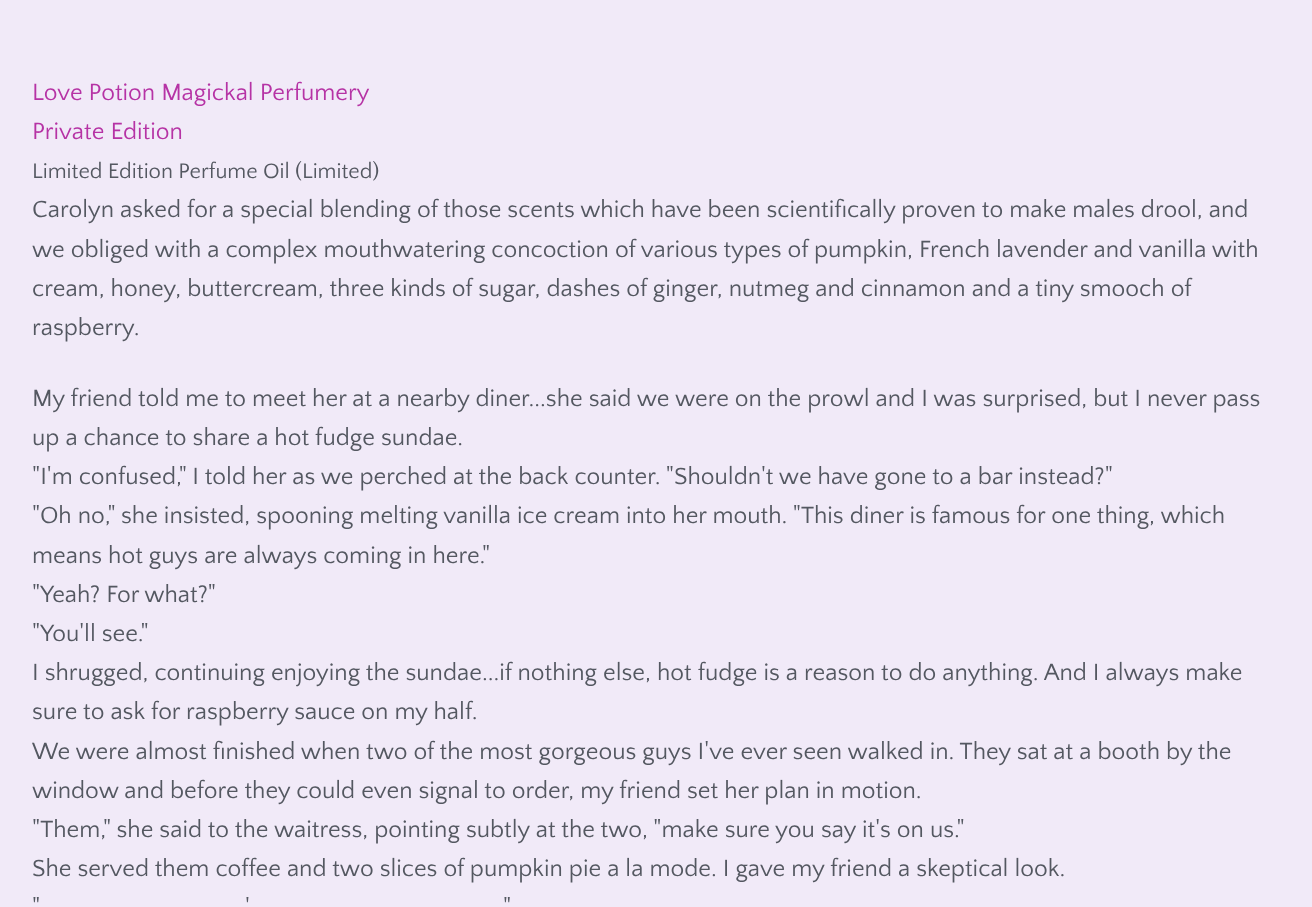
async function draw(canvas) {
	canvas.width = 1312;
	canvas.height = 907;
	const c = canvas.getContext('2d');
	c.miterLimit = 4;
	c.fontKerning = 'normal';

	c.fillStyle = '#f1eaf8';
	c.fillRect(0, 0, 1312, 907);
	c.font = '24.5px Quattrocento Sans';
	c.fillStyle = '#b633a5';
	c.fillText('Love Potion Magickal Perfumery', 32, 100);
	c.fillText('Private Edition', 32, 139);
	c.font = '22px Quattrocento Sans';
	c.fillStyle = '#545861';
	c.fillText('Limited Edition Perfume Oil (Limited)', 32, 178);
	c.font = '24.5px Quattrocento Sans';
	for (const [text, x, y] of [
		['Carolyn asked for a special blending of those scents which have been scientifically proven to make males drool, and', 32, 217],
		['we obliged with a complex mouthwatering concoction of various types of pumpkin, French lavender and vanilla with', 32, 257],
		['cream, honey, buttercream, three kinds of sugar, dashes of ginger, nutmeg and cinnamon and a tiny smooch of', 32, 296],
		['raspberry.', 32, 335],
		['My friend told me to meet her at a nearby diner...she said we were on the prowl and I was surprised, but I never pass', 32, 406],
		['up a chance to share a hot fudge sundae.', 32, 445],
		['"I\'m confused," I told her as we perched at the back counter. "Shouldn\'t we have gone to a bar instead?"', 32, 484],
		['"Oh no," she insisted, spooning melting vanilla ice cream into her mouth. "This diner is famous for one thing, which', 32, 523],
		['means hot guys are always coming in here."', 32, 563],
		['"Yeah? For what?"', 32, 602],
		['"You\'ll see."', 32, 641],
		['I shrugged, continuing enjoying the sundae...if nothing else, hot fudge is a reason to do anything. And I always make', 32, 680],
		['sure to ask for raspberry sauce on my half.', 32, 719],
		['We were almost finished when two of the most gorgeous guys I\'ve ever seen walked in. They sat at a booth by the', 32, 759],
		['window and before they could even signal to order, my friend set her plan in motion.', 32, 798],
		['"Them," she said to the waitress, pointing subtly at the two, "make sure you say it\'s on us."', 32, 837],
		['She served them coffee and two slices of pumpkin pie a la mode. I gave my friend a skeptical look.', 32, 876],
		['"', 32, 915],
		['\'', 245, 915],
		['"', 503, 915],
	]) {
		c.fillText(text, x, y);
	}
}

draw(document.querySelector('canvas'));
